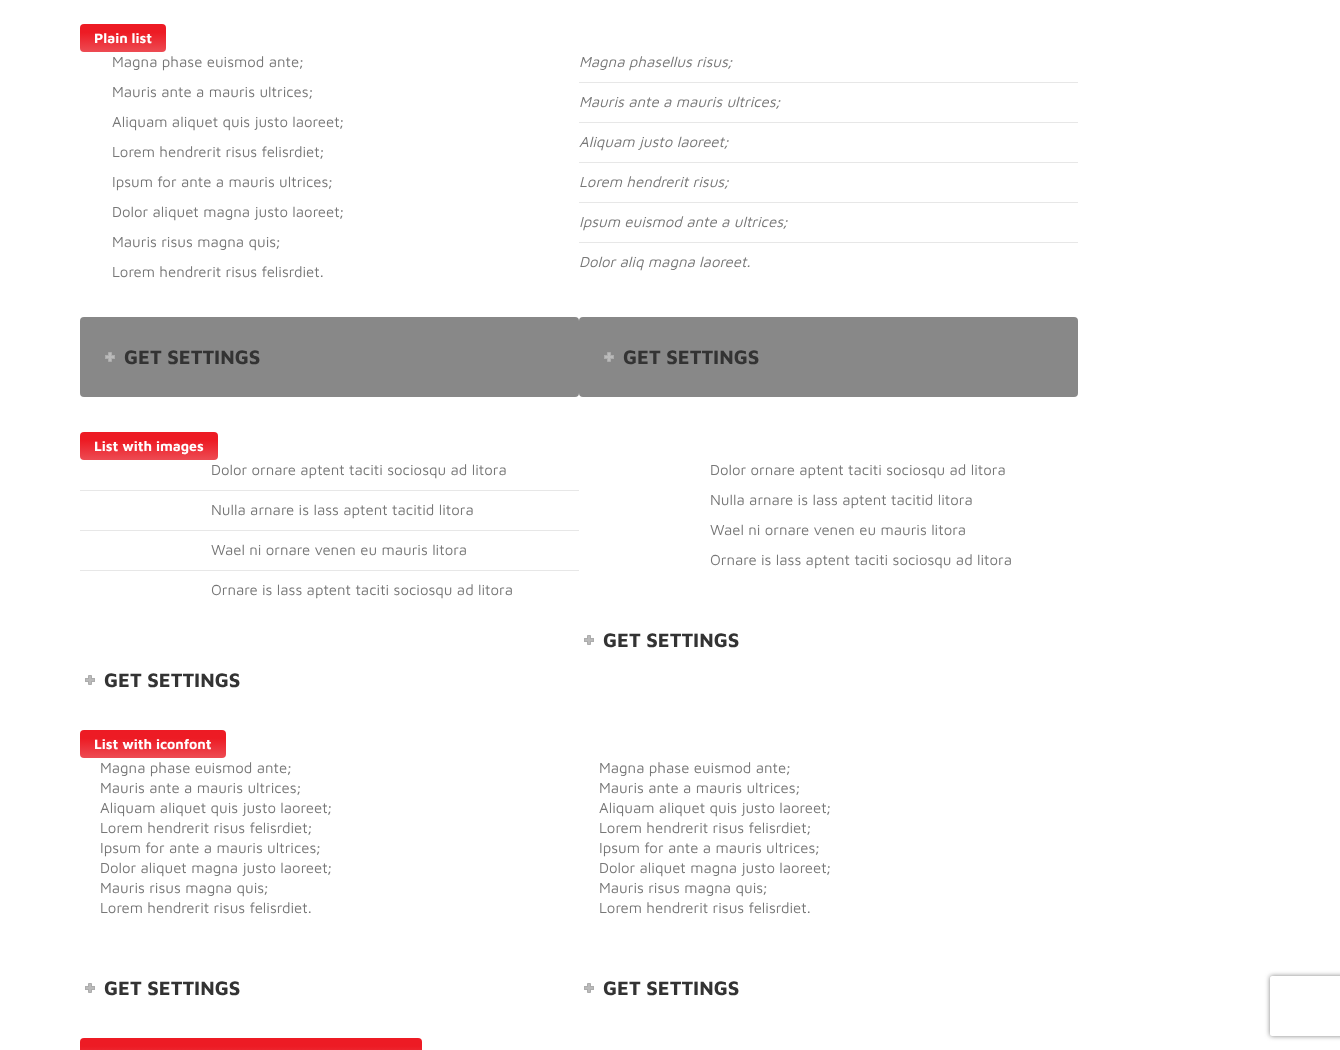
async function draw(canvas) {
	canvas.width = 1340;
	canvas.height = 1050;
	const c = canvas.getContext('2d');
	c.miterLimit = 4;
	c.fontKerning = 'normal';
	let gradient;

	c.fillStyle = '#fff';
	c.fillRect(0, 0, 1340, 1050);
	gradient = c.createLinearGradient(123, 24, 123, 52);
	gradient.addColorStop(0.3, '#ed1b24');
	gradient.addColorStop(1, '#ed4b53');
	c.fillStyle = gradient;
	c.beginPath();
	c.roundRect(80, 24, 86, 28, 4);
	c.fill();
	c.font = 'bold 14px Maven Pro';
	c.fillStyle = '#fff';
	c.fillText('Plain list', 94, 43);
	c.font = '15px Maven Pro';
	c.fillStyle = '#777';
	for (const [text, x, y] of [
		['Magna phase euismod ante;', 112, 67],
		['Mauris ante a mauris ultrices;', 112, 97],
		['Aliquam aliquet quis justo laoreet;', 112, 127],
		['Lorem hendrerit risus felisrdiet;', 112, 157],
		['Ipsum for ante a mauris ultrices;', 112, 187],
		['Dolor aliquet magna justo laoreet;', 112, 217],
		['Mauris risus magna quis;', 112, 247],
		['Lorem hendrerit risus felisrdiet.', 112, 277],
	]) {
		c.fillText(text, x, y);
	}
	c.fillStyle = '#888';
	c.beginPath();
	c.roundRect(80, 317, 499, 80, 4);
	c.fill();
	c.strokeStyle = '#acacac';
	c.strokeRect(105.5, 355.5, 9, 3);
	c.fillStyle = '#bababa';
	c.beginPath();
	c.rect(108.5, 352.5, 3, 9);
	c.fill();
	c.stroke();
	c.fillRect(106, 356, 8, 2);
	c.font = 'bold 20px Maven Pro';
	c.fillStyle = '#333';
	c.fillText('GET SETTINGS', 124, 364);
	c.font = 'italic 15px Maven Pro';
	c.fillStyle = '#777';
	c.fillText('Magna phasellus risus;', 579, 67);
	c.fillStyle = '#e7e7e7';
	c.fillRect(579, 82, 499, 1);
	c.fillStyle = '#777';
	c.fillText('Mauris ante a mauris ultrices;', 579, 107);
	c.fillStyle = '#e7e7e7';
	c.fillRect(579, 122, 499, 1);
	c.fillStyle = '#777';
	c.fillText('Aliquam justo laoreet;', 579, 147);
	c.fillStyle = '#e7e7e7';
	c.fillRect(579, 162, 499, 1);
	c.fillStyle = '#777';
	c.fillText('Lorem hendrerit risus;', 579, 187);
	c.fillStyle = '#e7e7e7';
	c.fillRect(579, 202, 499, 1);
	c.fillStyle = '#777';
	c.fillText('Ipsum euismod ante a ultrices;', 579, 227);
	c.fillStyle = '#e7e7e7';
	c.fillRect(579, 242, 499, 1);
	c.fillStyle = '#777';
	c.fillText('Dolor aliq magna laoreet.', 579, 267);
	c.fillStyle = '#888';
	c.beginPath();
	c.roundRect(579, 317, 499, 80, 4);
	c.fill();
	c.strokeRect(604.5, 355.5, 9, 3);
	c.fillStyle = '#bababa';
	c.beginPath();
	c.rect(607.5, 352.5, 3, 9);
	c.fill();
	c.stroke();
	c.fillRect(605, 356, 8, 2);
	c.font = 'bold 20px Maven Pro';
	c.fillStyle = '#333';
	c.fillText('GET SETTINGS', 623, 364);
	gradient = c.createLinearGradient(149, 432, 149, 460);
	gradient.addColorStop(0.3, '#ed1b24');
	gradient.addColorStop(1, '#ed4b53');
	c.fillStyle = gradient;
	c.beginPath();
	c.roundRect(80, 432, 138, 28, 4);
	c.fill();
	c.font = 'bold 14px Maven Pro';
	c.fillStyle = '#fff';
	c.fillText('List with images', 94, 451);
	c.font = '15px Maven Pro';
	c.fillStyle = '#777';
	c.fillText('Dolor ornare aptent taciti sociosqu ad litora', 211, 475);
	c.fillStyle = '#e7e7e7';
	c.fillRect(80, 490, 499, 1);
	c.fillStyle = '#777';
	c.fillText('Nulla arnare is lass aptent tacitid litora', 211, 515);
	c.fillStyle = '#e7e7e7';
	c.fillRect(80, 530, 499, 1);
	c.fillStyle = '#777';
	c.fillText('Wael ni ornare venen eu mauris litora', 211, 555);
	c.fillStyle = '#e7e7e7';
	c.fillRect(80, 570, 499, 1);
	c.fillStyle = '#777';
	c.fillText('Ornare is lass aptent taciti sociosqu ad litora', 211, 595);
	c.strokeRect(85.5, 678.5, 9, 3);
	c.fillStyle = '#bababa';
	c.beginPath();
	c.rect(88.5, 675.5, 3, 9);
	c.fill();
	c.stroke();
	c.fillRect(86, 679, 8, 2);
	c.font = 'bold 20px Maven Pro';
	c.fillStyle = '#333';
	c.fillText('GET SETTINGS', 104, 687);
	c.font = '15px Maven Pro';
	c.fillStyle = '#777';
	for (const [text, x, y] of [
		['Dolor ornare aptent taciti sociosqu ad litora', 710, 475],
		['Nulla arnare is lass aptent tacitid litora', 710, 505],
		['Wael ni ornare venen eu mauris litora', 710, 535],
		['Ornare is lass aptent taciti sociosqu ad litora', 710, 565],
	]) {
		c.fillText(text, x, y);
	}
	c.strokeRect(584.5, 638.5, 9, 3);
	c.fillStyle = '#bababa';
	c.beginPath();
	c.rect(587.5, 635.5, 3, 9);
	c.fill();
	c.stroke();
	c.fillRect(585, 639, 8, 2);
	c.font = 'bold 20px Maven Pro';
	c.fillStyle = '#333';
	c.fillText('GET SETTINGS', 603, 647);
	gradient = c.createLinearGradient(153, 730, 153, 758);
	gradient.addColorStop(0.3, '#ed1b24');
	gradient.addColorStop(1, '#ed4b53');
	c.fillStyle = gradient;
	c.beginPath();
	c.roundRect(80, 730, 146, 28, 4);
	c.fill();
	c.font = 'bold 14px Maven Pro';
	c.fillStyle = '#fff';
	c.fillText('List with iconfont', 94, 749);
	c.font = '15px Maven Pro';
	c.fillStyle = '#777';
	for (const [text, x, y] of [
		['Magna phase euismod ante;', 100, 773],
		['Mauris ante a mauris ultrices;', 100, 793],
		['Aliquam aliquet quis justo laoreet;', 100, 813],
		['Lorem hendrerit risus felisrdiet;', 100, 833],
		['Ipsum for ante a mauris ultrices;', 100, 853],
		['Dolor aliquet magna justo laoreet;', 100, 873],
		['Mauris risus magna quis;', 100, 893],
		['Lorem hendrerit risus felisrdiet.', 100, 913],
	]) {
		c.fillText(text, x, y);
	}
	c.strokeRect(85.5, 986.5, 9, 3);
	c.fillStyle = '#bababa';
	c.beginPath();
	c.rect(88.5, 983.5, 3, 9);
	c.fill();
	c.stroke();
	c.fillRect(86, 987, 8, 2);
	c.font = 'bold 20px Maven Pro';
	c.fillStyle = '#333';
	c.fillText('GET SETTINGS', 104, 995);
	c.font = '15px Maven Pro';
	c.fillStyle = '#777';
	for (const [text, x, y] of [
		['Magna phase euismod ante;', 599, 773],
		['Mauris ante a mauris ultrices;', 599, 793],
		['Aliquam aliquet quis justo laoreet;', 599, 813],
		['Lorem hendrerit risus felisrdiet;', 599, 833],
		['Ipsum for ante a mauris ultrices;', 599, 853],
		['Dolor aliquet magna justo laoreet;', 599, 873],
		['Mauris risus magna quis;', 599, 893],
		['Lorem hendrerit risus felisrdiet.', 599, 913],
	]) {
		c.fillText(text, x, y);
	}
	c.strokeRect(584.5, 986.5, 9, 3);
	c.fillStyle = '#bababa';
	c.beginPath();
	c.rect(587.5, 983.5, 3, 9);
	c.fill();
	c.stroke();
	c.fillRect(585, 987, 8, 2);
	c.font = 'bold 20px Maven Pro';
	c.fillStyle = '#333';
	c.fillText('GET SETTINGS', 603, 995);
	gradient = c.createLinearGradient(251, 1038, 251, 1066);
	gradient.addColorStop(0.3, '#ed1b24');
	gradient.addColorStop(1, '#ed4b53');
	c.fillStyle = gradient;
	c.beginPath();
	c.roundRect(80, 1038, 342, 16, 4);
	c.fill();
	c.save();
	c.beginPath();
	c.moveTo(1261, 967);
	c.lineTo(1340, 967);
	c.lineTo(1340, 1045);
	c.lineTo(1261, 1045);
	c.closePath();
	c.moveTo(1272, 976);
	c.lineTo(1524, 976);
	c.bezierCurveTo(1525, 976, 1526, 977, 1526, 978);
	c.lineTo(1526, 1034);
	c.bezierCurveTo(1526, 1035, 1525, 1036, 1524, 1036);
	c.lineTo(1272, 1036);
	c.bezierCurveTo(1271, 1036, 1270, 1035, 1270, 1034);
	c.lineTo(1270, 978);
	c.bezierCurveTo(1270, 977, 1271, 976, 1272, 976);
	c.closePath();
	c.clip('evenodd');
	c.fillStyle = '#808080';
	c.filter = 'blur(2.5px)';
	c.beginPath();
	c.roundRect(1270, 976, 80, 60, 2);
	c.fill();
	c.filter = 'none';
	c.restore();
}

draw(document.querySelector('canvas'));
